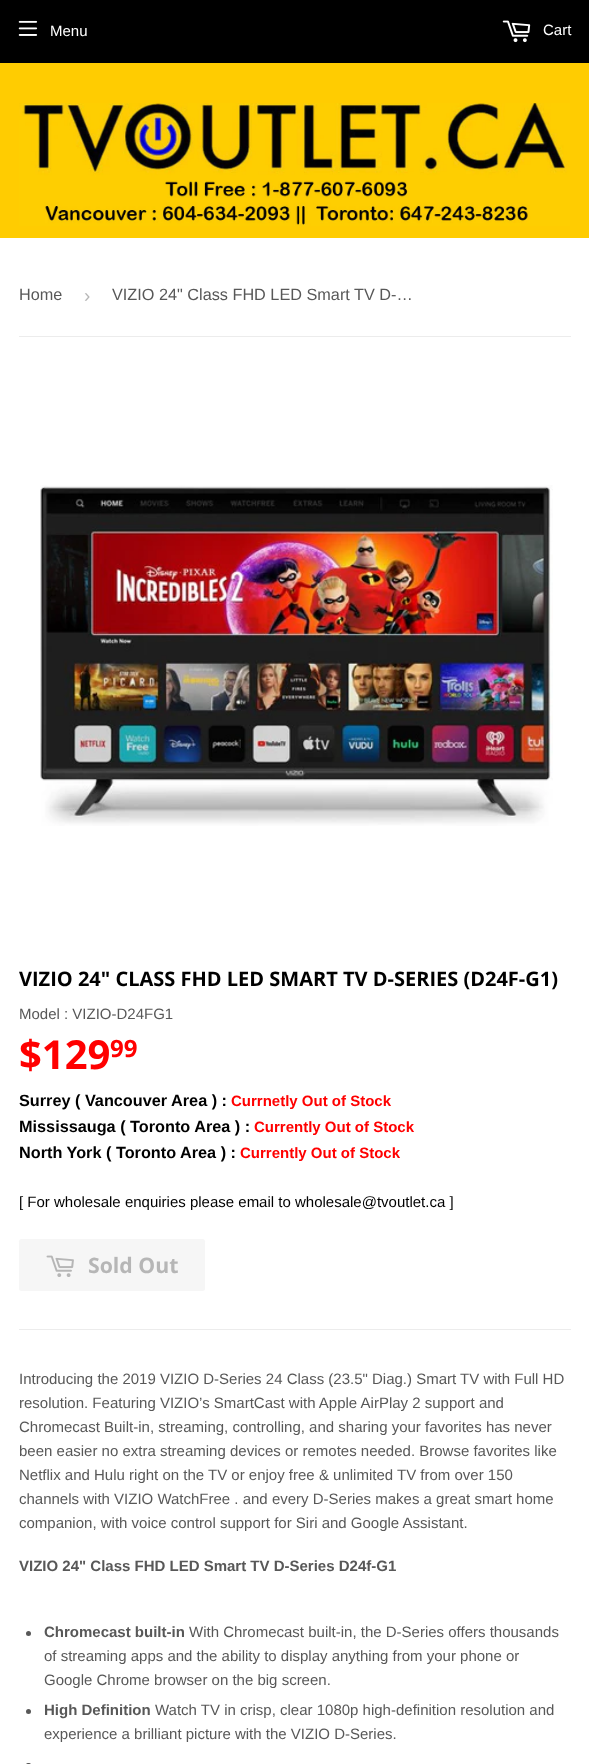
async function draw(canvas) {
	canvas.width = 589;
	canvas.height = 1764;
	const c = canvas.getContext('2d');
	c.miterLimit = 4;
	c.fontKerning = 'normal';
	async function loadImage(src) {
		const img = new Image();
		img.src = src;
		await img.decode();
		return img;
	}

	c.fillStyle = '#fff';
	c.fillRect(0, 0, 589, 1764);
	c.fillStyle = '#000';
	c.fillRect(0, 0, 589, 63);
	c.drawImage(await loadImage('img1.png'), 18, 20, 20, 16);
	c.font = '15px Liberation Sans';
	c.fillStyle = '#fff';
	c.fillText('Menu', 50, 36);
	c.drawImage(await loadImage('img2.png'), 502, 20, 29, 23);
	c.fillText('Cart', 543, 35);
	c.fillStyle = '#ffcc01';
	c.fillRect(0, 63, 589, 175);
	c.drawImage(await loadImage('img3.png'), 19, 103, 551, 123);
	c.fillStyle = '#ececec';
	c.fillRect(19, 336, 552, 1);
	c.font = '16.25px Liberation Sans';
	c.fillStyle = '#585858';
	c.fillText('Home', 19, 300);
	c.font = '19px Liberation Sans';
	c.fillStyle = '#b6b6b6';
	c.fillText('›', 84, 302);
	c.font = '16.25px Liberation Sans';
	c.fillStyle = '#585858';
	c.fillText('VIZIO 24" Class FHD LED Smart TV D-…', 112, 300);
	c.drawImage(await loadImage('img4.png'), 40, 485, 513, 341);
	c.font = 'bold 20px Open Sans';
	c.fillStyle = '#000';
	c.fillText('VIZIO 24" CLASS FHD LED SMART TV D-SERIES (D24F-G1)', 19, 986);
	c.font = '15px Liberation Sans';
	c.fillStyle = '#585858';
	c.fillText('Model : VIZIO-D24FG1', 19, 1019);
	c.font = 'bold 40px Open Sans';
	c.fillStyle = '#f00';
	c.fillText('$129', 19, 1069);
	c.font = 'bold 24px Open Sans';
	c.fillText('99', 110, 1057);
	c.font = 'bold 16.25px Liberation Sans';
	c.fillStyle = '#000';
	c.fillText('Surrey ( Vancouver Area ) :', 19, 1106);
	c.font = 'bold 15px Liberation Sans';
	c.fillStyle = '#f00';
	c.fillText('Currnetly Out of Stock', 231, 1106);
	c.font = 'bold 16.25px Liberation Sans';
	c.fillStyle = '#000';
	c.fillText('Mississauga ( Toronto Area ) :', 19, 1132);
	c.font = 'bold 15px Liberation Sans';
	c.fillStyle = '#f00';
	c.fillText('Currently Out of Stock', 254, 1132);
	c.font = 'bold 16.25px Liberation Sans';
	c.fillStyle = '#000';
	c.fillText('North York ( Toronto Area ) :', 19, 1158);
	c.font = 'bold 15px Liberation Sans';
	c.fillStyle = '#f00';
	c.fillText('Currently Out of Stock', 240, 1158);
	c.font = '15px Liberation Sans';
	c.fillStyle = '#000';
	c.fillText('[ For wholesale enquiries please email to wholesale@tvoutlet.ca ]', 19, 1207);
	c.fillStyle = '#f6f6f6';
	c.beginPath();
	c.roundRect(19, 1239, 186, 52, 2.5);
	c.fill();
	c.drawImage(await loadImage('img5.png'), 46, 1255, 28, 22);
	c.font = 'bold 21.25px Open Sans';
	c.fillStyle = '#b6b6b6';
	c.fillText('Sold Out', 88, 1273);
	c.fillStyle = '#ececec';
	c.fillRect(19, 1329, 552, 1);
	c.font = '15px Liberation Sans';
	c.fillStyle = '#585858';
	for (const [text, x, y] of [
		['Introducing the 2019 VIZIO D-Series 24 Class (23.5" Diag.) Smart TV with Full HD', 19, 1384],
		['resolution. Featuring VIZIO’s SmartCast with Apple AirPlay 2 support and', 19, 1408],
		['Chromecast Built-in, streaming, controlling, and sharing your favorites has never', 19, 1432],
		['been easier no extra streaming devices or remotes needed. Browse favorites like', 19, 1456],
		['Netflix and Hulu right on the TV or enjoy free & unlimited TV from over 150', 19, 1480],
		['channels with VIZIO WatchFree . and every D-Series makes a great smart home', 19, 1504],
		['companion, with voice control support for Siri and Google Assistant.', 19, 1528],
	]) {
		c.fillText(text, x, y);
	}
	c.font = 'bold 15px Liberation Sans';
	c.fillText('VIZIO 24" Class FHD LED Smart TV D-Series D24f-G1', 19, 1571);
	c.beginPath();
	c.arc(28.5, 1633.5, 2.5, 0, 2 * Math.PI);
	c.fill();
	c.fillText('Chromecast built-in', 44, 1637);
	c.font = '15px Liberation Sans';
	for (const [text, x, y] of [
		['With Chromecast built-in, the D-Series offers thousands', 189, 1637],
		['of streaming apps and the ability to display anything from your phone or', 44, 1661],
		['Google Chrome browser on the big screen.', 44, 1685],
	]) {
		c.fillText(text, x, y);
	}
	c.beginPath();
	c.arc(28.5, 1711.5, 2.5, 0, 2 * Math.PI);
	c.fill();
	c.font = 'bold 15px Liberation Sans';
	c.fillText('High Definition', 44, 1715);
	c.font = '15px Liberation Sans';
	c.fillText('Watch TV in crisp, clear 1080p high-definition resolution and', 155, 1715);
	c.fillText('experience a brilliant picture with the VIZIO D-Series.', 44, 1739);
	c.beginPath();
	c.roundRect(26, 1763, 5, 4, 2.5);
	c.fill();
}

draw(document.querySelector('canvas'));
